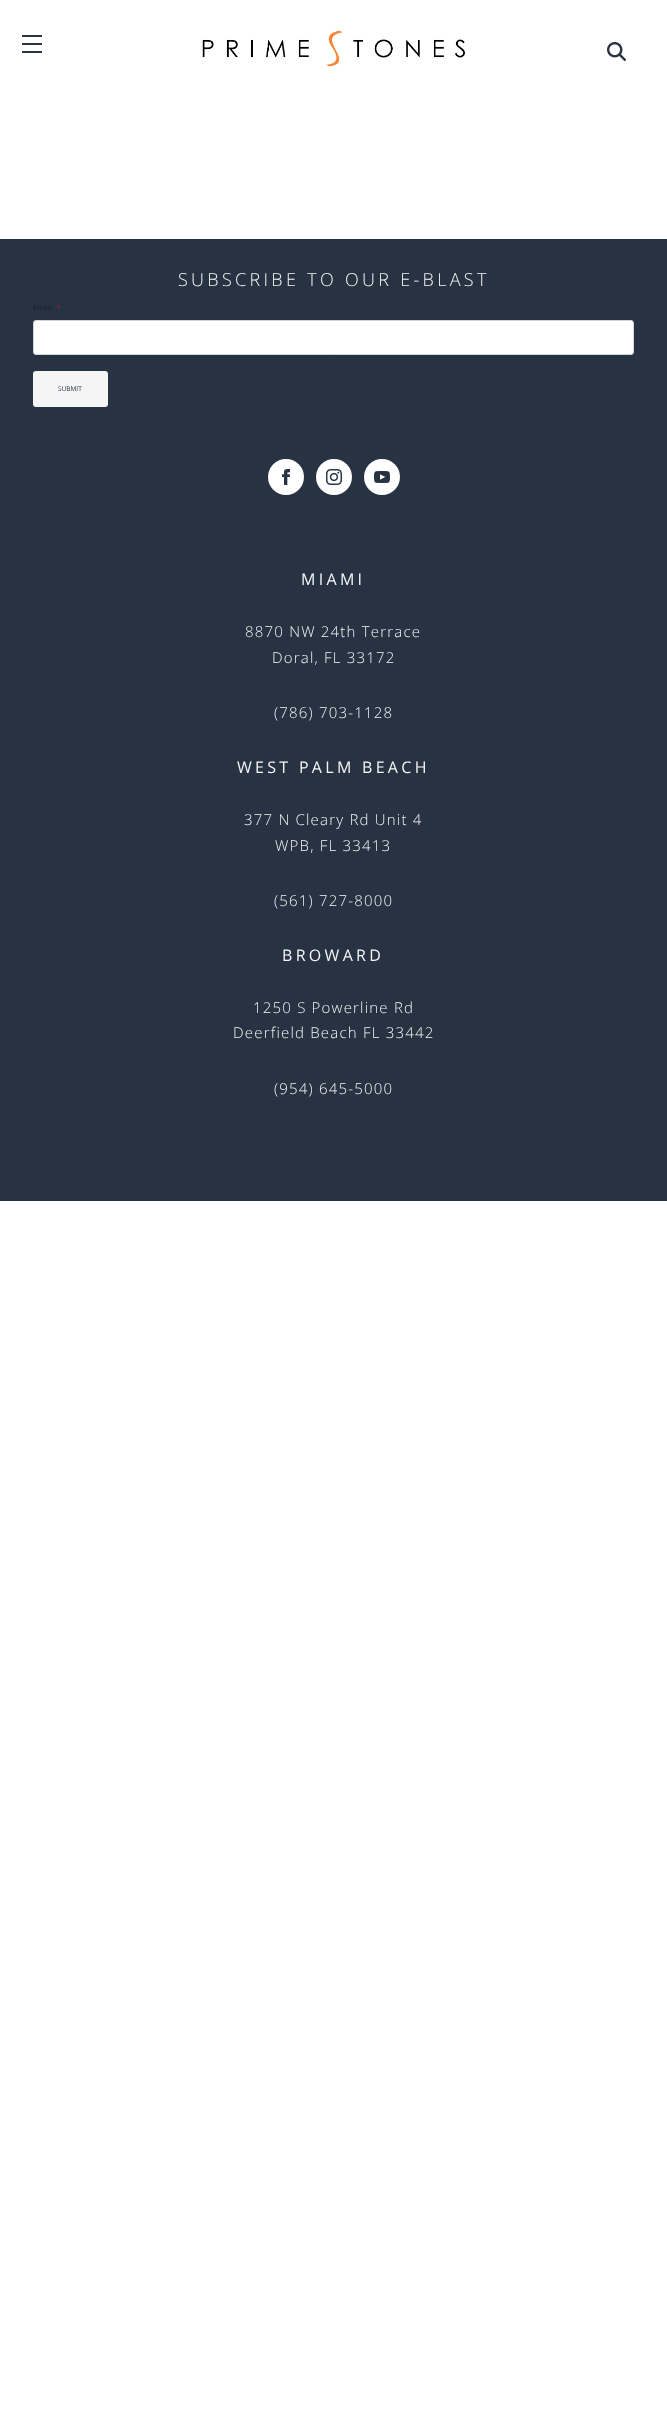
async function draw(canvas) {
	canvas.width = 667;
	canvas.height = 2417;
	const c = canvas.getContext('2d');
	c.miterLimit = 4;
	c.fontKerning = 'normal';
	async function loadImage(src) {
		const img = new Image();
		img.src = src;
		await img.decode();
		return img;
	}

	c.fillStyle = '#fff';
	c.fillRect(0, 0, 667, 2417);
	for (const [x, y, w, h, color] of [
		[22, 43, 20, 2, '#273242'],
		[22, 35, 20, 2, '#273242'],
		[22, 51, 20, 2, '#273242'],
	]) {
		c.fillStyle = color;
		c.fillRect(x, y, w, h);
	}
	c.drawImage(await loadImage('img1.png'), 202, 30, 263, 37);
	c.drawImage(await loadImage('img2.png'), 607, 42, 19, 19);
	c.fillRect(0, 239, 667, 962);
	c.letterSpacing = '3.3px';
	c.font = '300 18px Open Sans';
	c.fillStyle = '#f5f5f5';
	c.fillText('SUBSCRIBE TO OUR E-BLAST', 178, 286);
	c.letterSpacing = '0.5px';
	c.font = '6.5px Open Sans';
	c.fillStyle = '#111827';
	c.fillText('Email', 33, 310);
	c.fillStyle = '#b91c1c';
	c.fillText('*', 57, 310);
	c.fillStyle = '#fff';
	c.beginPath();
	c.roundRect(33.5, 320.5, 600, 34, 2.5);
	c.fill();
	c.strokeStyle = '#d1d5db';
	c.stroke();
	c.fillStyle = '#f5f5f5';
	c.beginPath();
	c.roundRect(33, 371, 75, 36, 3);
	c.fill();
	c.letterSpacing = '0px';
	c.fillStyle = '#273242';
	c.fillText('SUBMIT', 58, 391);
	c.fillStyle = '#fff';
	c.beginPath();
	c.arc(286, 477, 18, 0, 2 * Math.PI);
	c.fill();
	c.drawImage(await loadImage('img3.png'), 282, 469, 8, 16);
	c.beginPath();
	c.arc(334, 477, 18, 0, 2 * Math.PI);
	c.fill();
	c.drawImage(await loadImage('img4.png'), 326, 469, 16, 16);
	c.beginPath();
	c.arc(382, 477, 18, 0, 2 * Math.PI);
	c.fill();
	c.drawImage(await loadImage('img5.png'), 374, 471, 16, 12);
	c.letterSpacing = '3.3px';
	c.font = '16px Open Sans';
	c.fillStyle = '#f5f5f5';
	c.fillText('MIAMI', 301, 585);
	c.letterSpacing = '1.2px';
	c.font = '300 15px Open Sans';
	for (const [text, x, y] of [
		['8870 NW 24th Terrace', 245, 637],
		['Doral, FL 33172', 272, 663],
		['(786) 703-1128', 274, 718],
	]) {
		c.fillText(text, x, y);
	}
	c.letterSpacing = '3.3px';
	c.font = '16px Open Sans';
	c.fillText('WEST PALM BEACH', 237, 773);
	c.letterSpacing = '1.2px';
	c.font = '300 15px Open Sans';
	for (const [text, x, y] of [
		['377 N Cleary Rd Unit 4', 244, 825],
		['WPB, FL 33413', 275, 851],
		['(561) 727-8000', 274, 906],
	]) {
		c.fillText(text, x, y);
	}
	c.letterSpacing = '3.3px';
	c.font = '16px Open Sans';
	c.fillText('BROWARD', 282, 961);
	c.letterSpacing = '1.2px';
	c.font = '300 15px Open Sans';
	for (const [text, x, y] of [
		['1250 S Powerline Rd', 253, 1013],
		['Deerfield Beach FL 33442', 233, 1038],
		['(954) 645-5000', 274, 1094],
	]) {
		c.fillText(text, x, y);
	}
}

draw(document.querySelector('canvas'));
